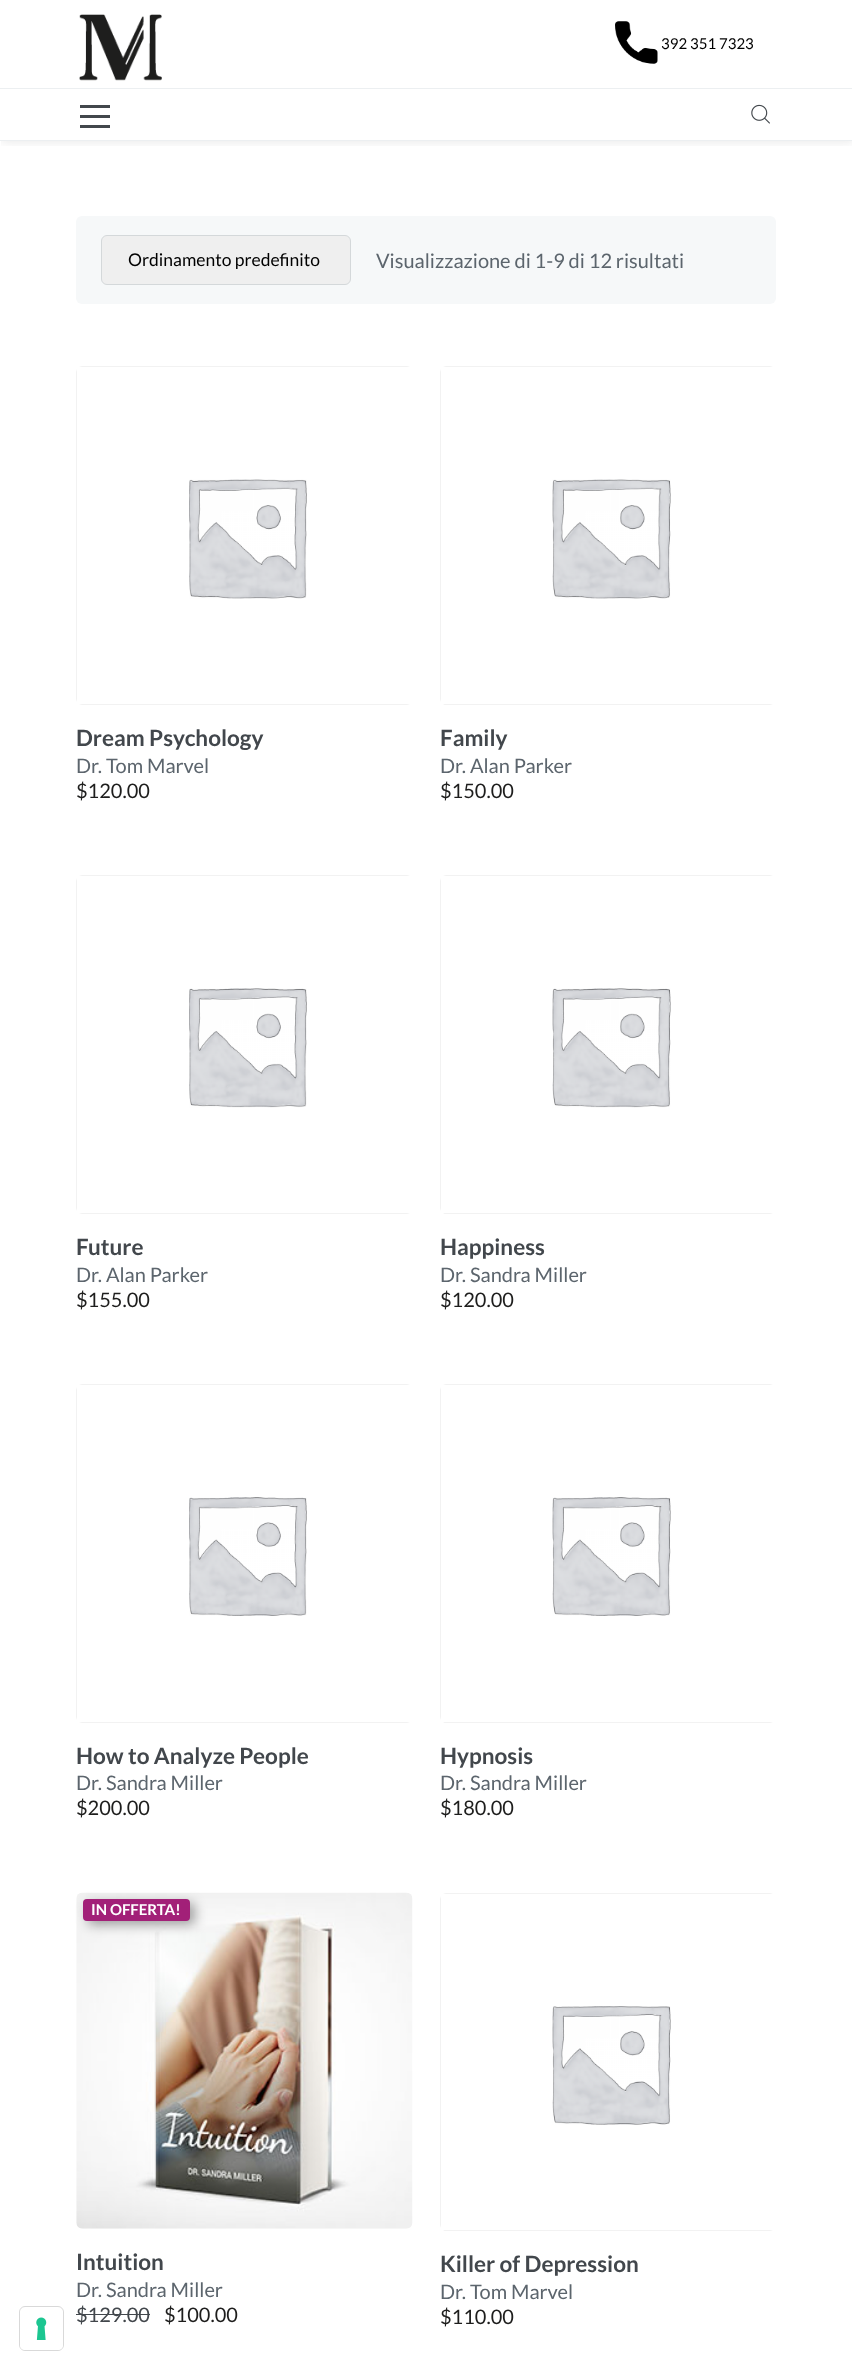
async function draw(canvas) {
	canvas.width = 852;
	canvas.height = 2369;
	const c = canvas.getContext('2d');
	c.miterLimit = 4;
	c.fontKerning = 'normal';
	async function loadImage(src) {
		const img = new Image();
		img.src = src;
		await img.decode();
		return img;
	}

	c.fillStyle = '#fff';
	c.fillRect(0, 0, 852, 2369);
	c.save();
	c.beginPath();
	c.rect(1, 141, 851, 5);
	c.clip();
	c.fillStyle = '#0000001a';
	c.filter = 'blur(6px)';
	c.beginPath();
	c.rect(1, 0, 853, 141);
	c.fill();
	c.filter = 'none';
	c.restore();
	c.fillStyle = '#eceff1';
	c.fillRect(0, 88, 852, 1);
	c.drawImage(await loadImage('img1.png'), 79, 14, 83, 67);
	c.drawImage(await loadImage('img2.png'), 615, 21, 43, 43);
	c.font = '15px Lato';
	c.fillStyle = '#000';
	c.fillText('392 351 7323', 661, 49);
	for (const [x, y, w, h, color] of [
		[0, 140, 852, 1, '#eceff1'],
		[80, 115, 30, 3, '#42474c'],
		[80, 105, 30, 3, '#42474c'],
		[80, 125, 30, 3, '#42474c'],
	]) {
		c.fillStyle = color;
		c.fillRect(x, y, w, h);
	}
	c.drawImage(await loadImage('img3.png'), 751, 104, 19, 20);
	c.beginPath();
	c.roundRect(19.5, 2306.5, 44, 44, 5.5);
	c.strokeStyle = '#d9d9d9';
	c.stroke();
	c.fillStyle = '#fff';
	c.beginPath();
	c.roundRect(20, 2308, 43, 42, 5);
	c.fill();
	c.drawImage(await loadImage('img4.png'), 36, 2317, 11, 23);
	c.fillStyle = '#f6f8f9';
	c.beginPath();
	c.roundRect(76, 216, 700, 88, 6);
	c.fill();
	c.fillStyle = '#efefef';
	c.beginPath();
	c.roundRect(101.5, 235.5, 249, 49, 5.5);
	c.fill();
	c.strokeStyle = '#d4d8da';
	c.stroke();
	c.font = '17.5px Lato';
	c.fillStyle = '#000';
	c.fillText('Ordinamento predefinito', 128, 266);
	c.font = '20px Lato';
	c.fillStyle = '#5c656d';
	c.fillText('Visualizzazione di 1-9 di 12 risultati', 376, 268);
	c.fillStyle = '#f2f2f2';
	c.beginPath();
	c.moveTo(76, 372);
	c.lineTo(76, 699);
	c.lineTo(77, 702);
	c.lineTo(77, 369);
	c.closePath();
	c.moveTo(82, 366);
	c.lineTo(79, 367);
	c.lineTo(410, 367);
	c.lineTo(407, 366);
	c.closePath();
	c.moveTo(407, 705);
	c.lineTo(410, 704);
	c.lineTo(79, 704);
	c.lineTo(82, 705);
	c.closePath();
	c.fill('evenodd');
	c.drawImage(await loadImage('img5.png'), 189, 479, 118, 120);
	c.font = 'bold 22.5px Lato';
	c.fillStyle = '#42474c';
	c.fillText('Dream Psychology', 76, 746);
	c.font = '20px Lato';
	c.fillStyle = '#5c656d';
	c.fillText('Dr. Tom Marvel', 76, 773);
	c.fillStyle = '#1e1e1d';
	c.fillText('$120.00', 76, 798);
	c.fillStyle = '#f2f2f2';
	c.beginPath();
	c.moveTo(440, 372);
	c.lineTo(440, 699);
	c.lineTo(441, 702);
	c.lineTo(441, 369);
	c.closePath();
	c.moveTo(446, 366);
	c.lineTo(443, 367);
	c.lineTo(773, 367);
	c.lineTo(770, 366);
	c.closePath();
	c.moveTo(770, 705);
	c.lineTo(773, 704);
	c.lineTo(443, 704);
	c.bezierCurveTo(444, 705, 445, 705, 446, 705);
	c.closePath();
	c.fill('evenodd');
	c.drawImage(await loadImage('img6.png'), 552, 479, 119, 120);
	c.font = 'bold 22.5px Lato';
	c.fillStyle = '#42474c';
	c.fillText('Family', 440, 746);
	c.font = '20px Lato';
	c.fillStyle = '#5c656d';
	c.fillText('Dr. Alan Parker', 440, 773);
	c.fillStyle = '#1e1e1d';
	c.fillText('$150.00', 440, 798);
	c.fillStyle = '#f2f2f2';
	c.beginPath();
	c.moveTo(76, 881);
	c.lineTo(76, 1208);
	c.lineTo(77, 1211);
	c.lineTo(77, 878);
	c.closePath();
	c.moveTo(82, 875);
	c.lineTo(79, 876);
	c.lineTo(410, 876);
	c.lineTo(407, 875);
	c.closePath();
	c.moveTo(407, 1214);
	c.lineTo(410, 1213);
	c.lineTo(79, 1213);
	c.lineTo(82, 1214);
	c.closePath();
	c.fill('evenodd');
	c.drawImage(await loadImage('img7.png'), 189, 988, 118, 120);
	c.font = 'bold 22.5px Lato';
	c.fillStyle = '#42474c';
	c.fillText('Future', 76, 1255);
	c.font = '20px Lato';
	c.fillStyle = '#5c656d';
	c.fillText('Dr. Alan Parker', 76, 1282);
	c.fillStyle = '#1e1e1d';
	c.fillText('$155.00', 76, 1307);
	c.fillStyle = '#f2f2f2';
	c.beginPath();
	c.moveTo(440, 881);
	c.lineTo(440, 1208);
	c.lineTo(441, 1211);
	c.lineTo(441, 878);
	c.closePath();
	c.moveTo(446, 875);
	c.lineTo(443, 876);
	c.lineTo(773, 876);
	c.lineTo(770, 875);
	c.closePath();
	c.moveTo(770, 1214);
	c.lineTo(773, 1213);
	c.lineTo(443, 1213);
	c.bezierCurveTo(444, 1214, 445, 1214, 446, 1214);
	c.closePath();
	c.fill('evenodd');
	c.drawImage(await loadImage('img8.png'), 552, 988, 119, 120);
	c.font = 'bold 22.5px Lato';
	c.fillStyle = '#42474c';
	c.fillText('Happiness', 440, 1255);
	c.font = '20px Lato';
	c.fillStyle = '#5c656d';
	c.fillText('Dr. Sandra Miller', 440, 1282);
	c.fillStyle = '#1e1e1d';
	c.fillText('$120.00', 440, 1307);
	c.fillStyle = '#f2f2f2';
	c.beginPath();
	c.moveTo(76, 1390);
	c.lineTo(76, 1717);
	c.lineTo(77, 1720);
	c.lineTo(77, 1387);
	c.closePath();
	c.moveTo(82, 1384);
	c.lineTo(79, 1385);
	c.lineTo(410, 1385);
	c.lineTo(407, 1384);
	c.closePath();
	c.moveTo(407, 1723);
	c.lineTo(410, 1722);
	c.lineTo(79, 1722);
	c.lineTo(82, 1723);
	c.closePath();
	c.fill('evenodd');
	c.drawImage(await loadImage('img9.png'), 189, 1497, 118, 119);
	c.font = 'bold 22.5px Lato';
	c.fillStyle = '#42474c';
	c.fillText('How to Analyze People', 76, 1764);
	c.font = '20px Lato';
	c.fillStyle = '#5c656d';
	c.fillText('Dr. Sandra Miller', 76, 1790);
	c.fillStyle = '#1e1e1d';
	c.fillText('$200.00', 76, 1815);
	c.fillStyle = '#f2f2f2';
	c.beginPath();
	c.moveTo(440, 1390);
	c.lineTo(440, 1717);
	c.lineTo(441, 1720);
	c.lineTo(441, 1387);
	c.closePath();
	c.moveTo(446, 1384);
	c.lineTo(443, 1385);
	c.lineTo(773, 1385);
	c.lineTo(770, 1384);
	c.closePath();
	c.moveTo(770, 1723);
	c.lineTo(773, 1722);
	c.lineTo(443, 1722);
	c.bezierCurveTo(444, 1723, 445, 1723, 446, 1723);
	c.closePath();
	c.fill('evenodd');
	c.drawImage(await loadImage('img10.png'), 552, 1497, 119, 119);
	c.font = 'bold 22.5px Lato';
	c.fillStyle = '#42474c';
	c.fillText('Hypnosis', 440, 1764);
	c.font = '20px Lato';
	c.fillStyle = '#5c656d';
	c.fillText('Dr. Sandra Miller', 440, 1790);
	c.fillStyle = '#1e1e1d';
	c.fillText('$180.00', 440, 1815);
	c.drawImage(await loadImage('img11.png'), 76, 1892, 337, 337);
	c.fillStyle = '#00000059';
	c.filter = 'blur(6px)';
	c.beginPath();
	c.roundRect(88, 1903, 107, 22, 4);
	c.fill();
	c.filter = 'none';
	c.fillStyle = '#a22078';
	c.beginPath();
	c.roundRect(83, 1899, 107, 22, 4);
	c.fill();
	c.font = 'bold 15px Lato';
	c.fillStyle = '#fff';
	c.fillText('IN OFFERTA!', 91, 1915);
	c.font = 'bold 22.5px Lato';
	c.fillStyle = '#42474c';
	c.fillText('Intuition', 76, 2270);
	c.font = '20px Lato';
	c.fillStyle = '#5c656d';
	c.fillText('Dr. Sandra Miller', 76, 2297);
	c.fillStyle = '#42474c';
	c.fillText('$129.00', 76, 2322);
	c.fillRect(76, 2314, 74, 1);
	c.fillStyle = '#1e1e1d';
	c.fillText('$100.00', 164, 2322);
	c.fillStyle = '#f2f2f2';
	c.beginPath();
	c.moveTo(440, 1899);
	c.lineTo(440, 2225);
	c.lineTo(441, 2228);
	c.lineTo(441, 1896);
	c.closePath();
	c.moveTo(446, 1893);
	c.lineTo(443, 1894);
	c.lineTo(773, 1894);
	c.lineTo(770, 1893);
	c.closePath();
	c.moveTo(770, 2231);
	c.lineTo(773, 2230);
	c.lineTo(443, 2230);
	c.bezierCurveTo(444, 2231, 445, 2231, 446, 2231);
	c.closePath();
	c.fill('evenodd');
	c.drawImage(await loadImage('img12.png'), 552, 2006, 119, 119);
	c.font = 'bold 22.5px Lato';
	c.fillStyle = '#42474c';
	c.fillText('Killer of Depression', 440, 2272);
	c.font = '20px Lato';
	c.fillStyle = '#5c656d';
	c.fillText('Dr. Tom Marvel', 440, 2299);
	c.fillStyle = '#1e1e1d';
	c.fillText('$110.00', 440, 2324);
}

draw(document.querySelector('canvas'));
